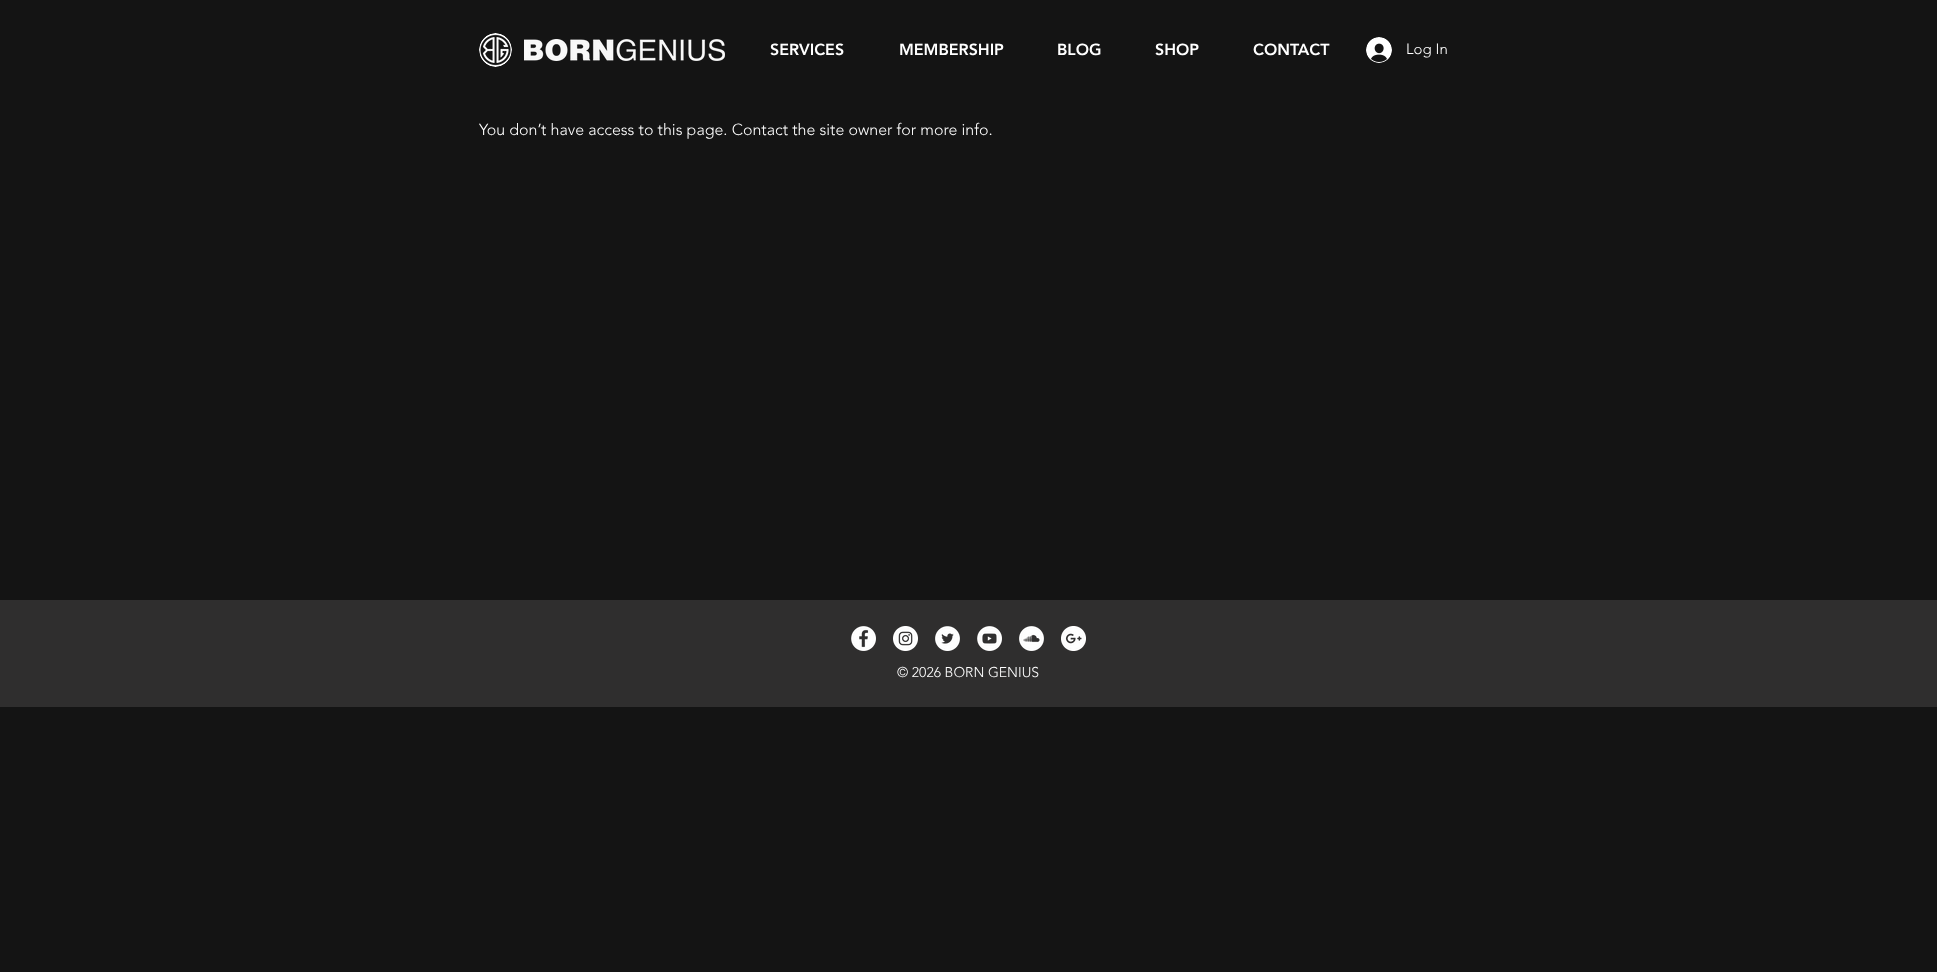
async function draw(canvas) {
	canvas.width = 1937;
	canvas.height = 972;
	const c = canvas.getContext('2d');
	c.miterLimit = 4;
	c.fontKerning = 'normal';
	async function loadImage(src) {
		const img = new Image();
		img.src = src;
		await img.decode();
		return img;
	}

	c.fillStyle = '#141414';
	c.fillRect(0, 0, 1937, 972);
	c.drawImage(await loadImage('img1.png'), 479, 33, 33, 34);
	c.drawImage(await loadImage('img2.png'), 524, 39, 201, 22);
	c.font = '900 16px "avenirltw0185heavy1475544"';
	c.fillStyle = '#fff';
	for (const [text, x, y] of [
		['SERVICES', 770, 55],
		['MEMBERSHIP', 899, 55],
		['BLOG', 1057, 55],
		['SHOP', 1155, 55],
		['CONTACT', 1253, 55],
	]) {
		c.fillText(text, x, y);
	}
	c.drawImage(await loadImage('img3.png'), 1366, 37, 26, 26);
	c.font = '300 15px "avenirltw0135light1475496"';
	c.fillText('Log In', 1406, 54);
	c.font = '300 16px "avenirltw0135light1475496"';
	c.fillText('You don’t have access to this page. Contact the site owner for more info.', 479, 135);
	c.fillStyle = '#2f2e2e';
	c.fillRect(0, 600, 1937, 107);
	c.drawImage(await loadImage('img4.png'), 851, 626, 25, 25);
	c.drawImage(await loadImage('img5.png'), 893, 626, 25, 25);
	c.drawImage(await loadImage('img6.png'), 935, 626, 25, 25);
	c.drawImage(await loadImage('img7.png'), 977, 626, 25, 25);
	c.drawImage(await loadImage('img8.png'), 1019, 626, 25, 25);
	c.drawImage(await loadImage('img9.png'), 1061, 626, 25, 25);
	c.font = '300 14px "avenirltw0135light1475496"';
	c.fillStyle = '#fff';
	c.fillText('© 2026 BORN GENIUS', 897, 677);
}

draw(document.querySelector('canvas'));
